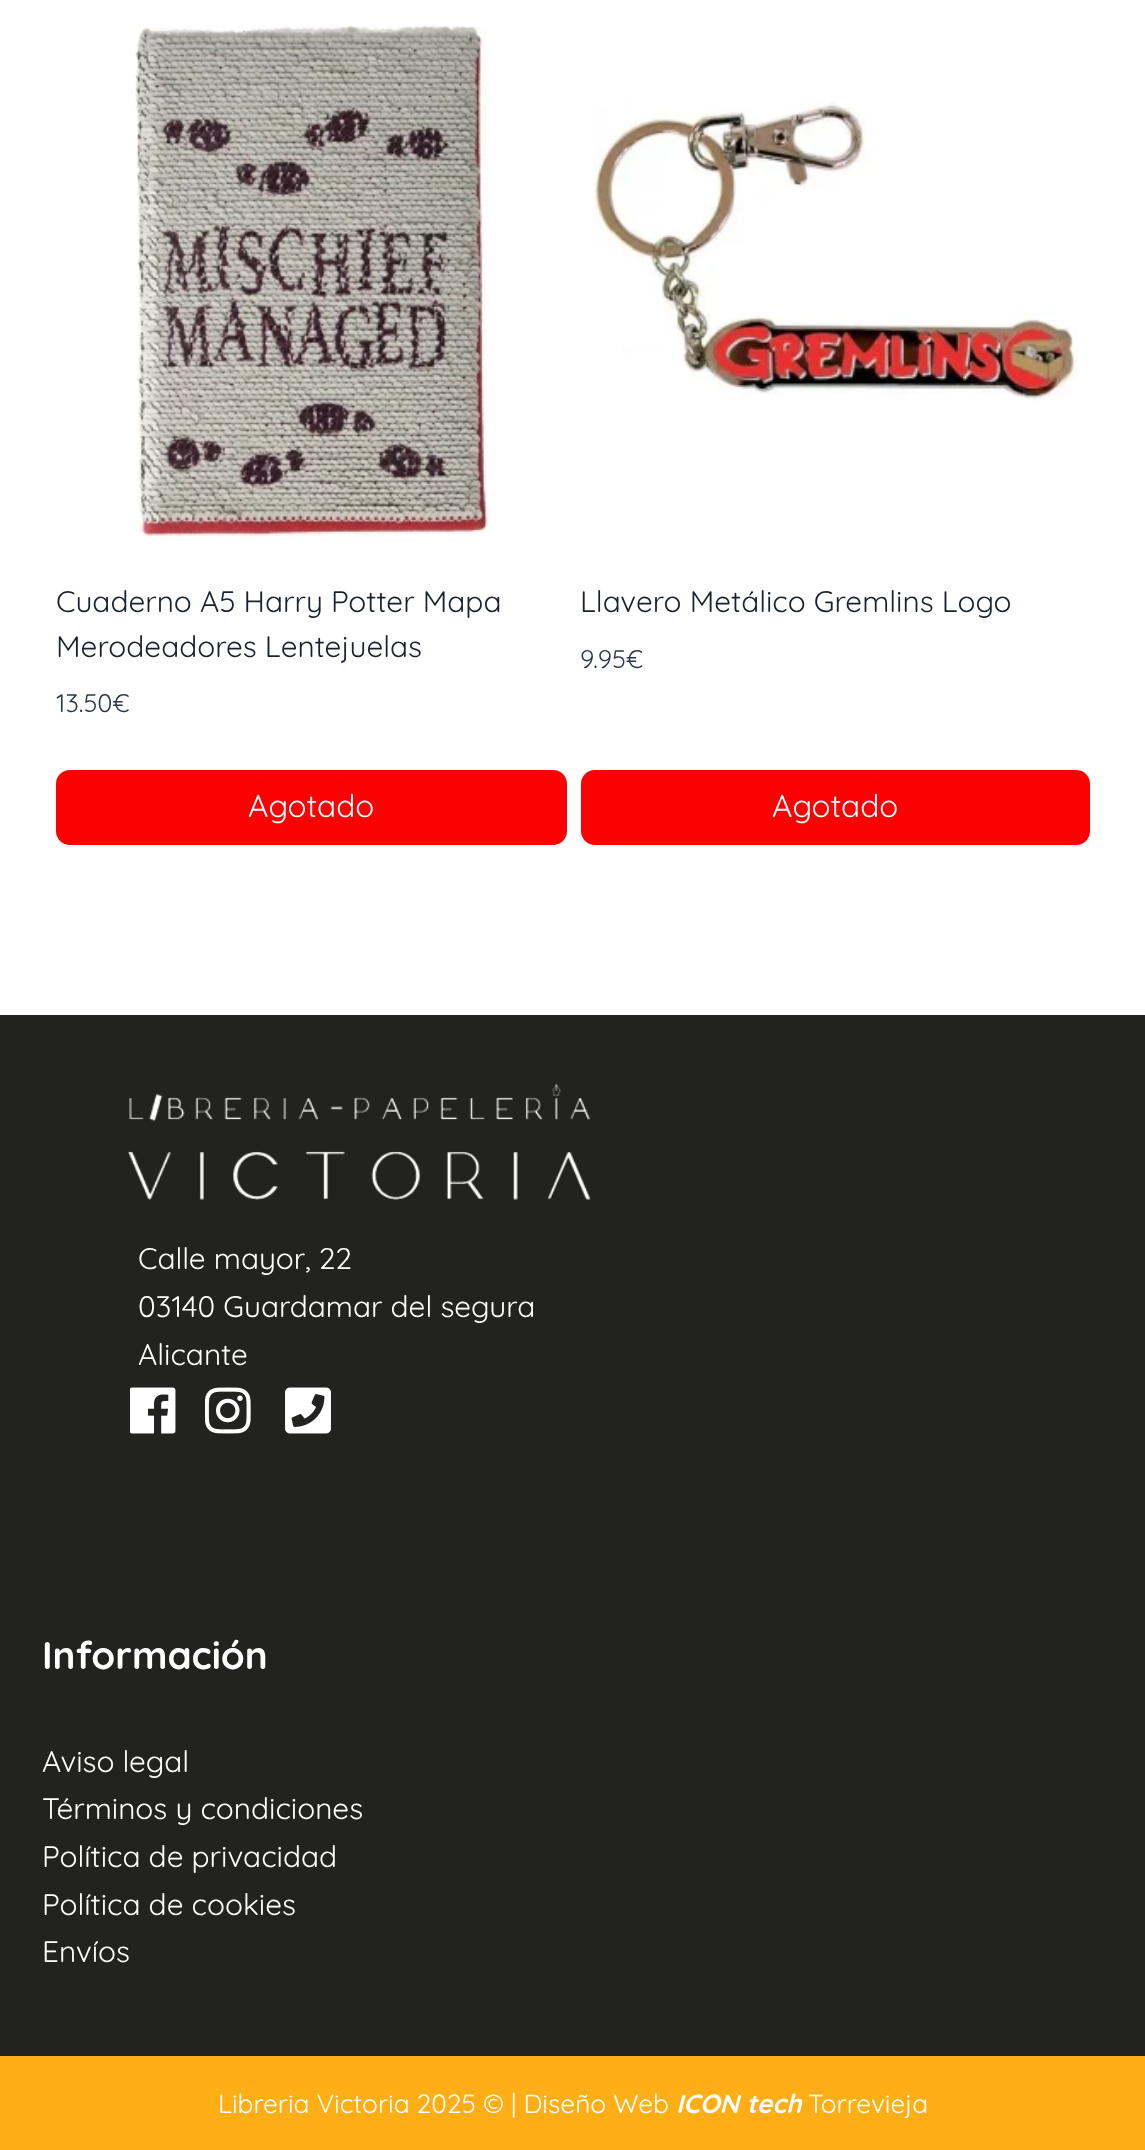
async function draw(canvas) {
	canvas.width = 1145;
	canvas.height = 2150;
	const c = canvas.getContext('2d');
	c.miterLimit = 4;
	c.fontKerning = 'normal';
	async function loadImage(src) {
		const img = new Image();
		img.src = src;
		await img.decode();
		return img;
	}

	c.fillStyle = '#fff';
	c.fillRect(0, 0, 1145, 2150);
	c.drawImage(await loadImage('img1.png'), 131, 26, 361, 511);
	c.font = '29.75px Quicksand';
	c.fillStyle = '#1a202c';
	c.fillText('Cuaderno A5 Harry Potter Mapa', 56, 612);
	c.fillText('Merodeadores Lentejuelas', 56, 657);
	c.font = '25.5px Quicksand';
	c.fillStyle = '#2d3748';
	c.fillText('13.50€', 56, 712);
	c.fillStyle = '#fb0101';
	c.beginPath();
	c.roundRect(56, 770, 511, 75, 14);
	c.fill();
	c.font = '31.5px Quicksand';
	c.fillStyle = '#fff';
	c.fillText('Agotado', 248, 817);
	c.drawImage(await loadImage('img2.png'), 593, 101, 485, 300);
	c.font = '29.75px Quicksand';
	c.fillStyle = '#1a202c';
	c.fillText('Llavero Metálico Gremlins Logo', 580, 612);
	c.font = '25.5px Quicksand';
	c.fillStyle = '#2d3748';
	c.fillText('9.95€', 580, 668);
	c.fillStyle = '#fb0101';
	c.beginPath();
	c.roundRect(581, 770, 509, 75, 14);
	c.fill();
	c.font = '31.5px Quicksand';
	c.fillStyle = '#fff';
	c.fillText('Agotado', 772, 817);
	c.fillStyle = '#222220';
	c.fillRect(0, 1015, 1145, 1041);
	c.drawImage(await loadImage('img3.png'), 127, 1083, 464, 117);
	c.font = '29.75px Quicksand';
	c.fillStyle = '#fff';
	for (const [text, x, y] of [
		['Calle mayor, 22', 138, 1269],
		['03140 Guardamar del segura', 138, 1317],
		['Alicante', 138, 1365],
	]) {
		c.fillText(text, x, y);
	}
	c.drawImage(await loadImage('img4.png'), 130, 1387, 46, 47);
	c.drawImage(await loadImage('img5.png'), 205, 1387, 46, 47);
	c.drawImage(await loadImage('img6.png'), 285, 1387, 46, 47);
	c.font = 'bold 38.5px Quicksand';
	c.fillText('Información', 42, 1669);
	c.font = '29.75px Quicksand';
	for (const [text, x, y] of [
		['Aviso legal', 42, 1772],
		['Términos y condiciones', 42, 1819],
		['Política de privacidad', 42, 1867],
		['Política de cookies', 42, 1915],
		['Envíos', 42, 1962],
	]) {
		c.fillText(text, x, y);
	}
	c.fillStyle = '#ffaf15';
	c.fillRect(0, 2056, 1145, 94);
	c.font = '26.25px Quicksand';
	c.fillStyle = '#fff';
	c.fillText('Libreria Victoria 2025 © | Diseño Web', 218, 2113);
	c.font = 'italic bold 26.25px Quicksand';
	c.fillText('ICON tech', 676, 2113);
	c.font = '26.25px Quicksand';
	c.fillText('Torrevieja', 808, 2113);
}

draw(document.querySelector('canvas'));
